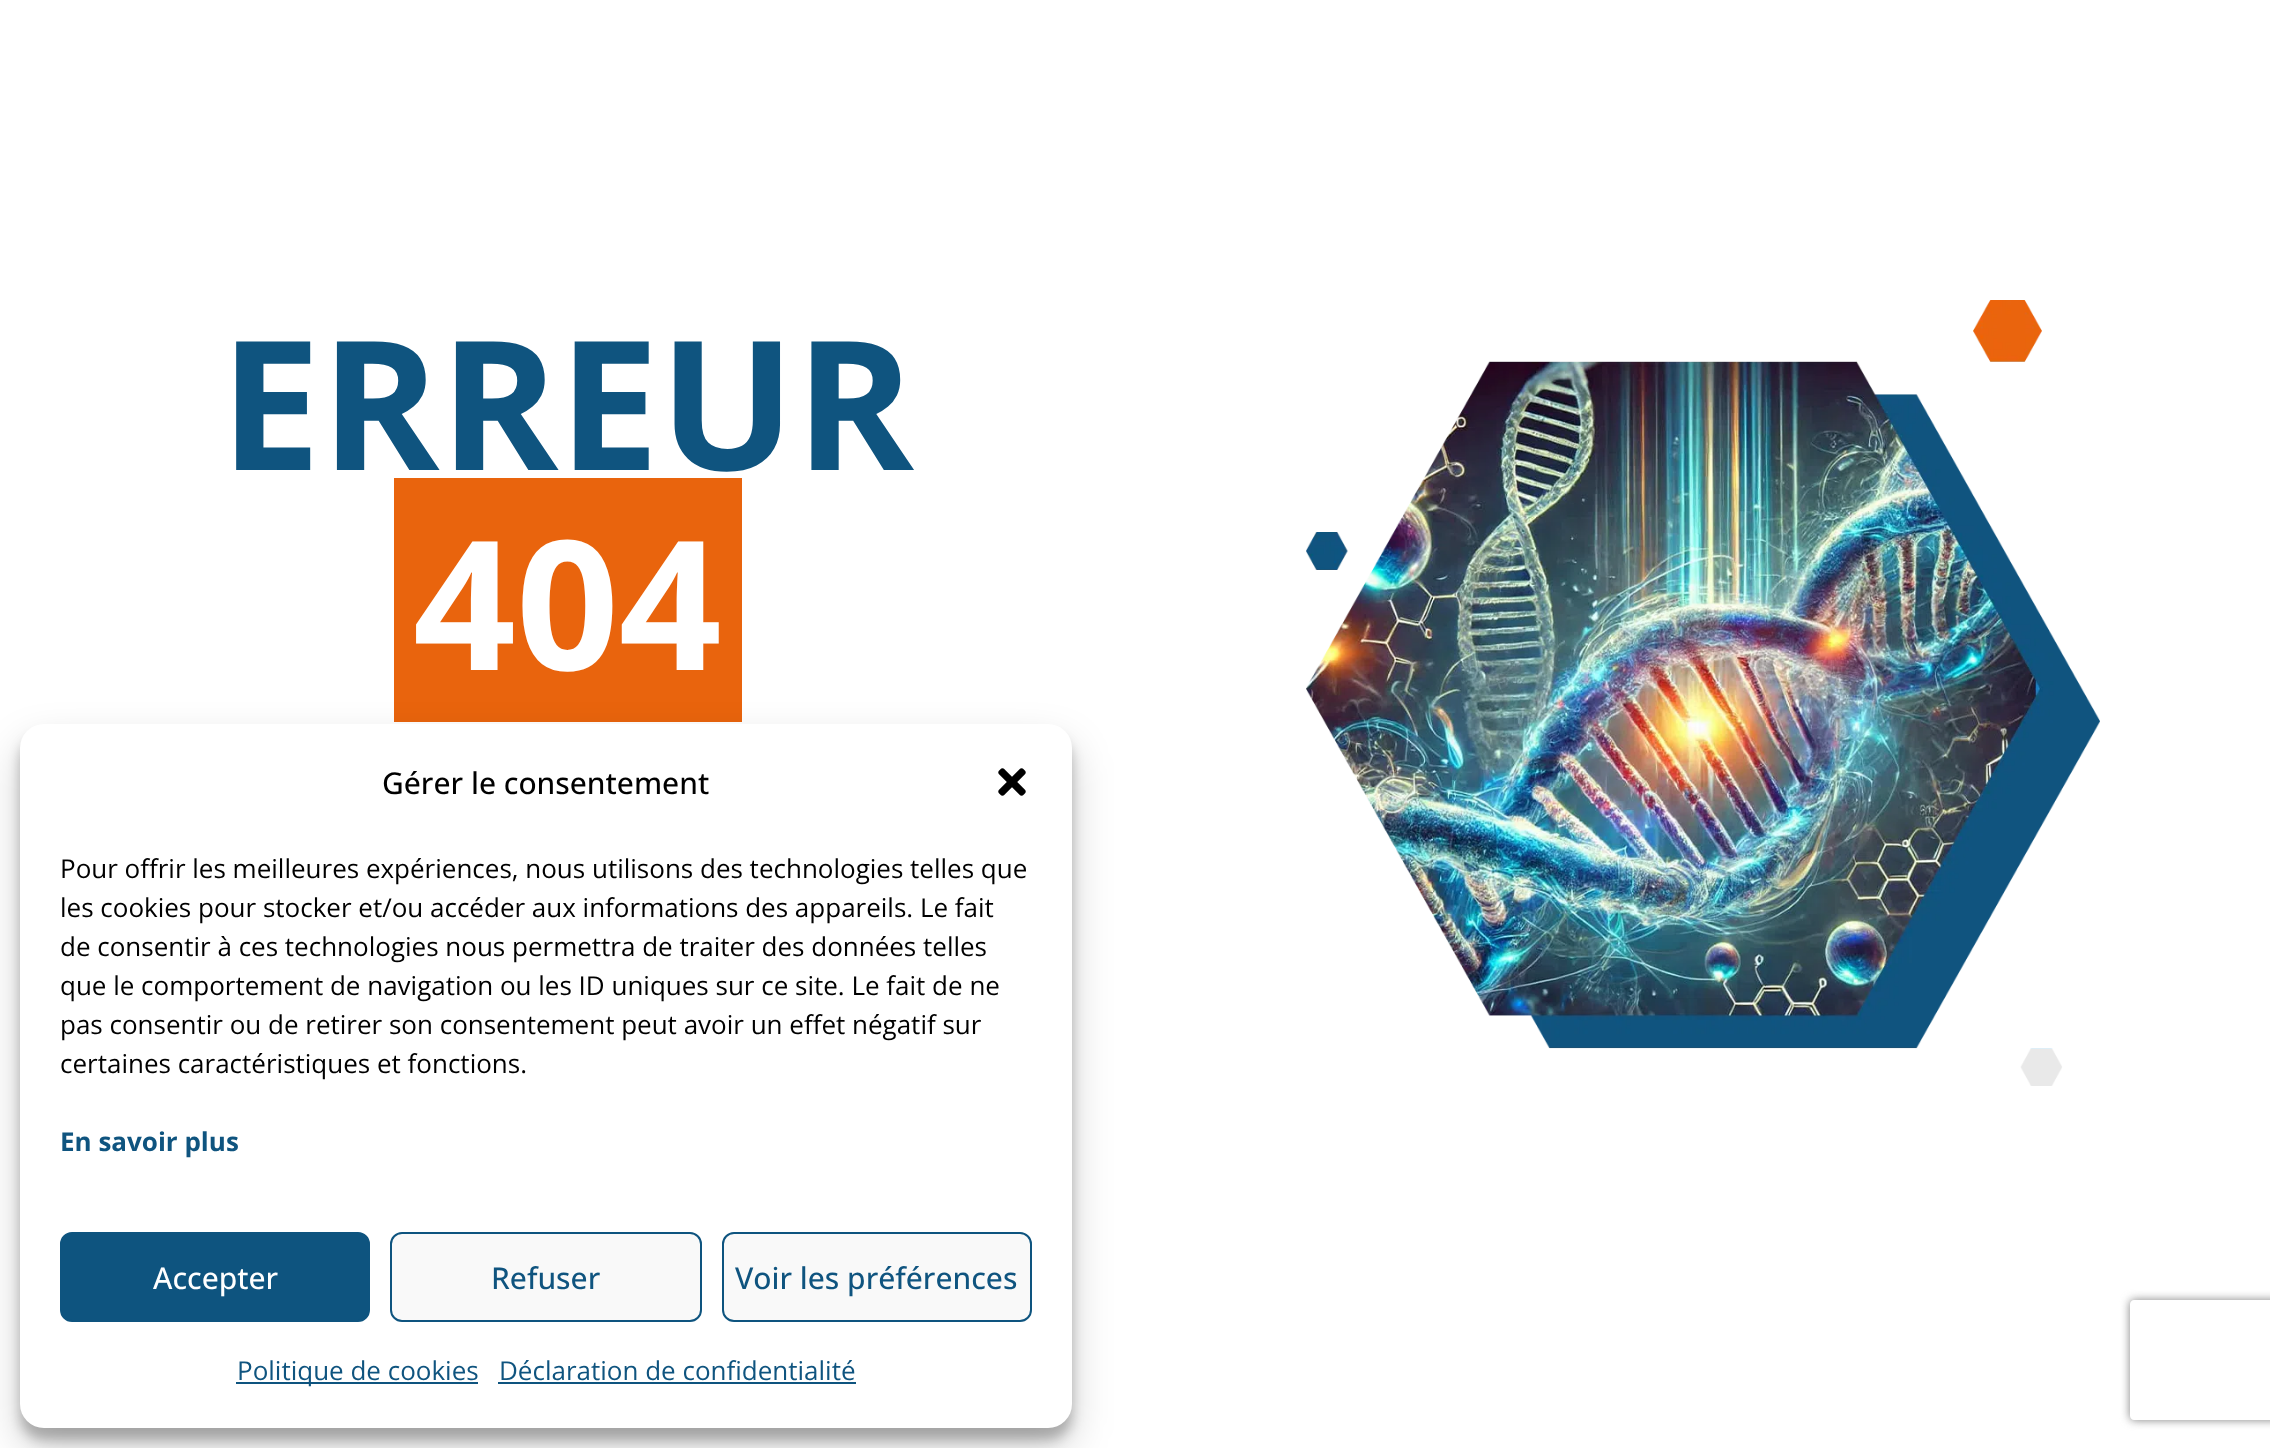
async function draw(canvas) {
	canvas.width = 2270;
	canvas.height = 1448;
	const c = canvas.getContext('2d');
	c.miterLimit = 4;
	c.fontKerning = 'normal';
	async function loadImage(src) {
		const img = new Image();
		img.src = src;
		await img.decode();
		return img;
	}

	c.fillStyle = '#fff';
	c.fillRect(0, 0, 2270, 1448);
	c.font = 'bold 180px Open Sans';
	c.fillStyle = '#0f547f';
	c.fillText('ERREUR', 220, 470);
	c.fillStyle = '#e9640d';
	c.fillRect(394, 478, 348, 244);
	c.fillStyle = '#fff';
	c.fillText('404', 413, 670);
	c.drawImage(await loadImage('img1.png'), 1306, 300, 794, 786);
	c.fillStyle = '#0000003b';
	c.filter = 'blur(6px)';
	c.beginPath();
	c.roundRect(20, 736, 1052, 704, 24);
	c.fill();
	c.filter = 'none';
	c.fillStyle = '#00000030';
	c.filter = 'blur(20px)';
	c.beginPath();
	c.roundRect(20, 744, 1052, 704, 24);
	c.fill();
	c.filter = 'none';
	c.fillStyle = '#fff';
	c.beginPath();
	c.roundRect(20, 724, 1052, 704, 24);
	c.fill();
	c.font = '500 30px Open Sans';
	c.fillStyle = '#000';
	c.fillText('Gérer le consentement', 382, 794);
	c.drawImage(await loadImage('img2.png'), 998, 768, 28, 28);
	c.font = '26px Open Sans';
	for (const [text, x, y] of [
		['Pour offrir les meilleures expériences, nous utilisons des technologies telles que', 60, 878],
		['les cookies pour stocker et/ou accéder aux informations des appareils. Le fait', 60, 917],
		['de consentir à ces technologies nous permettra de traiter des données telles', 60, 956],
		['que le comportement de navigation ou les ID uniques sur ce site. Le fait de ne', 60, 995],
		['pas consentir ou de retirer son consentement peut avoir un effet négatif sur', 60, 1034],
		['certaines caractéristiques et fonctions.', 60, 1073],
	]) {
		c.fillText(text, x, y);
	}
	c.font = 'bold 26px Open Sans';
	c.fillStyle = '#0f547f';
	c.fillText('En savoir plus', 60, 1151);
	c.fillStyle = '#0e547f';
	c.beginPath();
	c.roundRect(61, 1233, 308, 88, 11);
	c.fill();
	c.strokeStyle = '#0e547f';
	c.lineWidth = 2;
	c.stroke();
	c.font = '500 30px Open Sans';
	c.fillStyle = '#fff';
	c.fillText('Accepter', 153, 1289);
	c.fillStyle = '#f9f9f9';
	c.beginPath();
	c.roundRect(391, 1233, 310, 88, 11);
	c.fill();
	c.stroke();
	c.fillStyle = '#0f547f';
	c.fillText('Refuser', 491, 1289);
	c.fillStyle = '#f9f9f9';
	c.beginPath();
	c.roundRect(723, 1233, 308, 88, 11);
	c.fill();
	c.stroke();
	c.fillStyle = '#0f547f';
	c.fillText('Voir les préférences', 735, 1289);
	c.fillStyle = '#0e547f';
	c.fillRect(236, 1382, 242, 2);
	c.font = '26px Open Sans';
	c.fillStyle = '#0f547f';
	c.fillText('Politique de cookies', 237, 1380);
	c.fillText('Déclaration de confidentialité', 499, 1380);
	c.fillStyle = '#0e547f';
	c.fillRect(498, 1382, 358, 2);
	c.save();
	c.beginPath();
	c.moveTo(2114, 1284);
	c.lineTo(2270, 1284);
	c.lineTo(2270, 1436);
	c.lineTo(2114, 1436);
	c.closePath();
	c.moveTo(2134, 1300);
	c.lineTo(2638, 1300);
	c.bezierCurveTo(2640, 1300, 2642, 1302, 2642, 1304);
	c.lineTo(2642, 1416);
	c.bezierCurveTo(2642, 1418, 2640, 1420, 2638, 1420);
	c.lineTo(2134, 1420);
	c.bezierCurveTo(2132, 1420, 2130, 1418, 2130, 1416);
	c.lineTo(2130, 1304);
	c.bezierCurveTo(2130, 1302, 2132, 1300, 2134, 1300);
	c.closePath();
	c.clip('evenodd');
	c.fillStyle = '#808080';
	c.filter = 'blur(5px)';
	c.beginPath();
	c.roundRect(2130, 1300, 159, 120, 4);
	c.fill();
	c.filter = 'none';
	c.restore();
}

draw(document.querySelector('canvas'));
